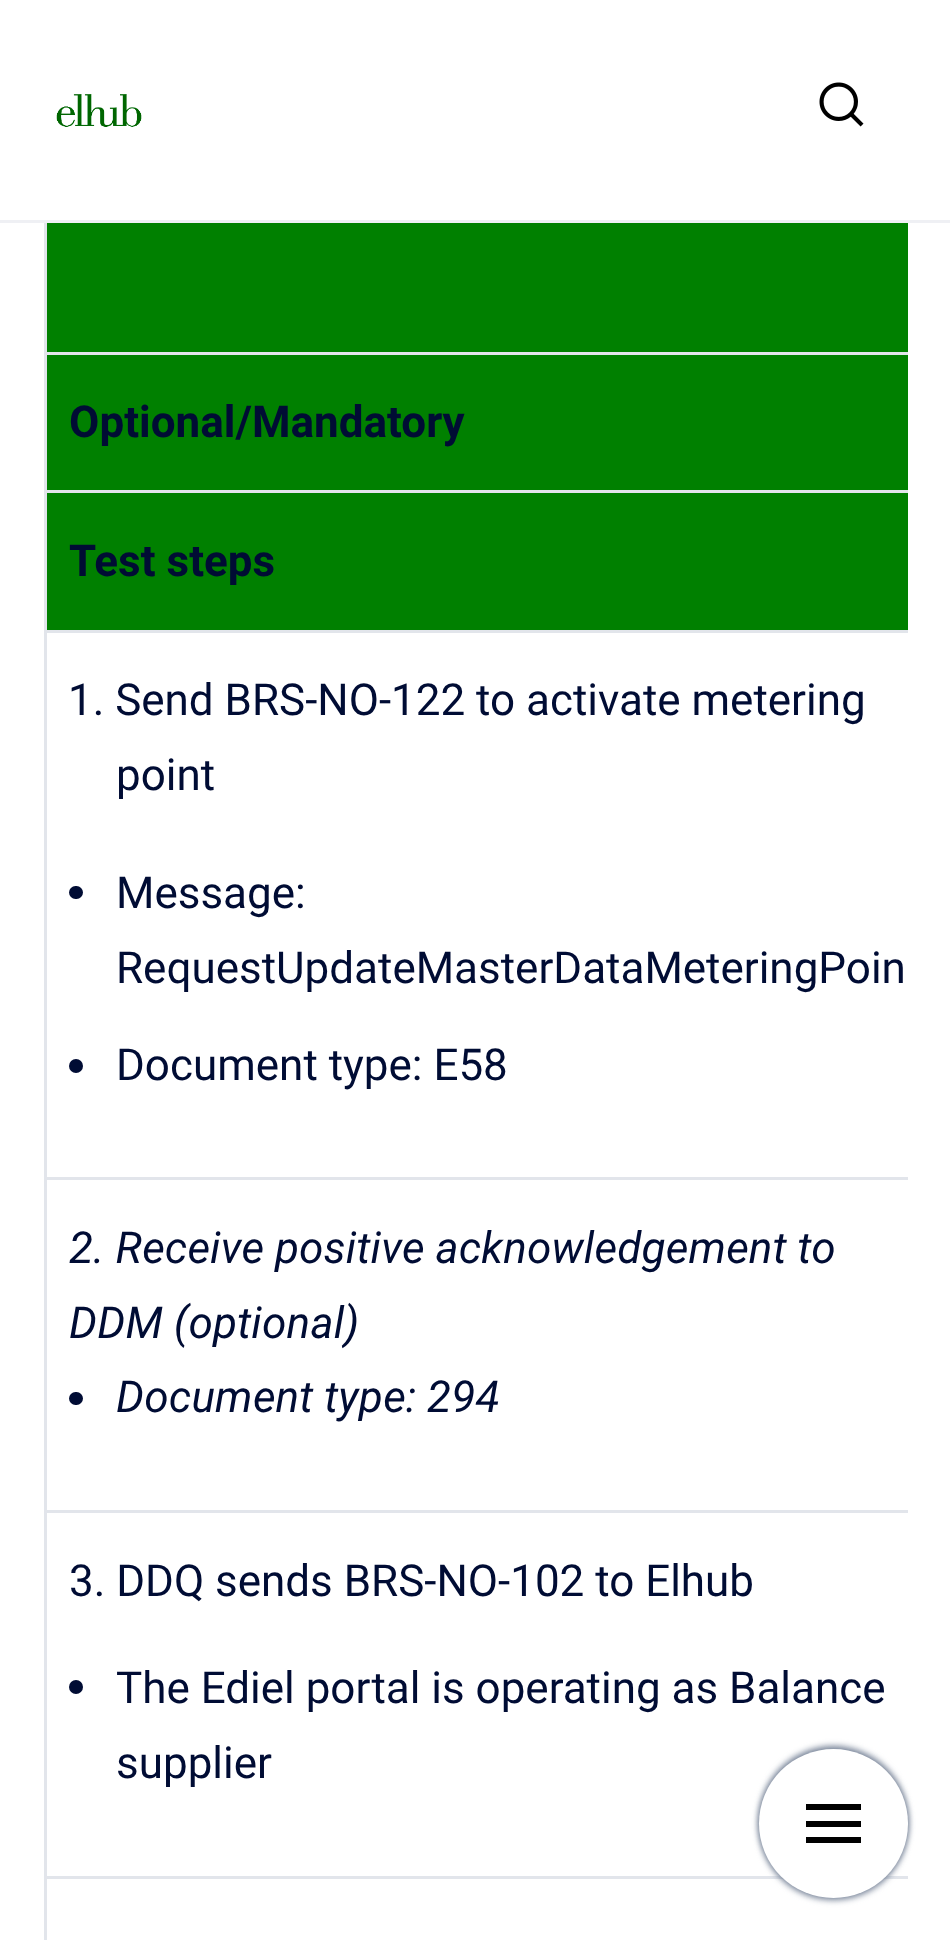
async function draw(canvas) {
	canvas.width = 950;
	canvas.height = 1940;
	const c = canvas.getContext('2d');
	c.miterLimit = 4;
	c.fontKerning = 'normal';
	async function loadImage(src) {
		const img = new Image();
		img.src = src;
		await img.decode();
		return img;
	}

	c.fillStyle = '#fff';
	c.fillRect(0, 0, 950, 1940);
	c.fillStyle = '#eff0f4';
	c.fillRect(0, 220, 950, 3);
	c.drawImage(await loadImage('img1.png'), 56, 94, 86, 33);
	c.drawImage(await loadImage('img2.png'), 819, 82, 45, 45);
	for (const [x, y, w, h, color] of [
		[44, 223, 3, 1717, '#e2e5eb'],
		[47, 223, 861, 129, '#008000'],
		[47, 355, 861, 135, '#008000'],
		[44, 352, 864, 3, '#e2e5eb'],
	]) {
		c.fillStyle = color;
		c.fillRect(x, y, w, h);
	}
	c.font = 'bold 44px Roboto';
	c.fillStyle = '#000c34';
	c.fillText('Optional/Mandatory', 69, 437);
	c.fillStyle = '#008000';
	c.fillRect(47, 493, 861, 137);
	c.fillStyle = '#e2e5eb';
	c.fillRect(44, 490, 864, 3);
	c.fillStyle = '#000c34';
	c.fillText('Test steps', 69, 576);
	c.fillStyle = '#e2e5eb';
	c.fillRect(44, 630, 864, 3);
	c.font = '44px Roboto';
	c.fillStyle = '#000c34';
	c.fillText('1. Send BRS-NO-122 to activate metering', 68, 715);
	c.fillText('point', 116, 790);
	c.beginPath();
	c.roundRect(69, 886, 14, 13, 6.5);
	c.fill();
	c.fillText('Message:', 116, 908);
	c.fillText('RequestUpdateMasterDataMeteringPoin', 116, 983);
	c.beginPath();
	c.arc(76, 1066, 7, 0, 2 * Math.PI);
	c.fill();
	c.fillText('Document type: E58', 116, 1080);
	c.fillStyle = '#e2e5eb';
	c.fillRect(44, 1177, 864, 3);
	c.font = 'italic 44px Roboto';
	c.fillStyle = '#000c34';
	c.fillText('2. Receive positive acknowledgement to', 69, 1263);
	c.fillText('DDM (optional)', 69, 1338);
	c.beginPath();
	c.roundRect(69, 1392, 14, 13, 6.5);
	c.fill();
	c.fillText('Document type: 294', 116, 1412);
	c.fillStyle = '#e2e5eb';
	c.fillRect(44, 1510, 864, 3);
	c.font = '44px Roboto';
	c.fillStyle = '#000c34';
	c.fillText('3. DDQ sends BRS-NO-102 to Elhub', 69, 1596);
	c.beginPath();
	c.arc(76, 1687, 7, 0, 2 * Math.PI);
	c.fill();
	c.fillText('The Ediel portal is operating as Balance', 116, 1703);
	c.fillText('supplier', 116, 1778);
	c.fillStyle = '#e2e5eb';
	c.fillRect(44, 1876, 864, 3);
	c.fillStyle = '#7a869a';
	c.filter = 'blur(3px)';
	c.beginPath();
	c.roundRect(759, 1746, 149, 149, 74.5);
	c.fill();
	c.filter = 'none';
	c.filter = 'blur(3px)';
	c.beginPath();
	c.roundRect(759, 1752, 149, 148, 74);
	c.fill();
	c.filter = 'none';
	c.fillStyle = '#fff';
	c.beginPath();
	c.arc(833.5, 1823.5, 74.5, 0, 2 * Math.PI);
	c.fill();
	for (const [x, y, w, h, color] of [
		[806, 1804, 55, 6, '#000'],
		[806, 1821, 55, 6, '#000'],
		[806, 1837, 55, 6, '#000'],
	]) {
		c.fillStyle = color;
		c.fillRect(x, y, w, h);
	}
}

draw(document.querySelector('canvas'));
